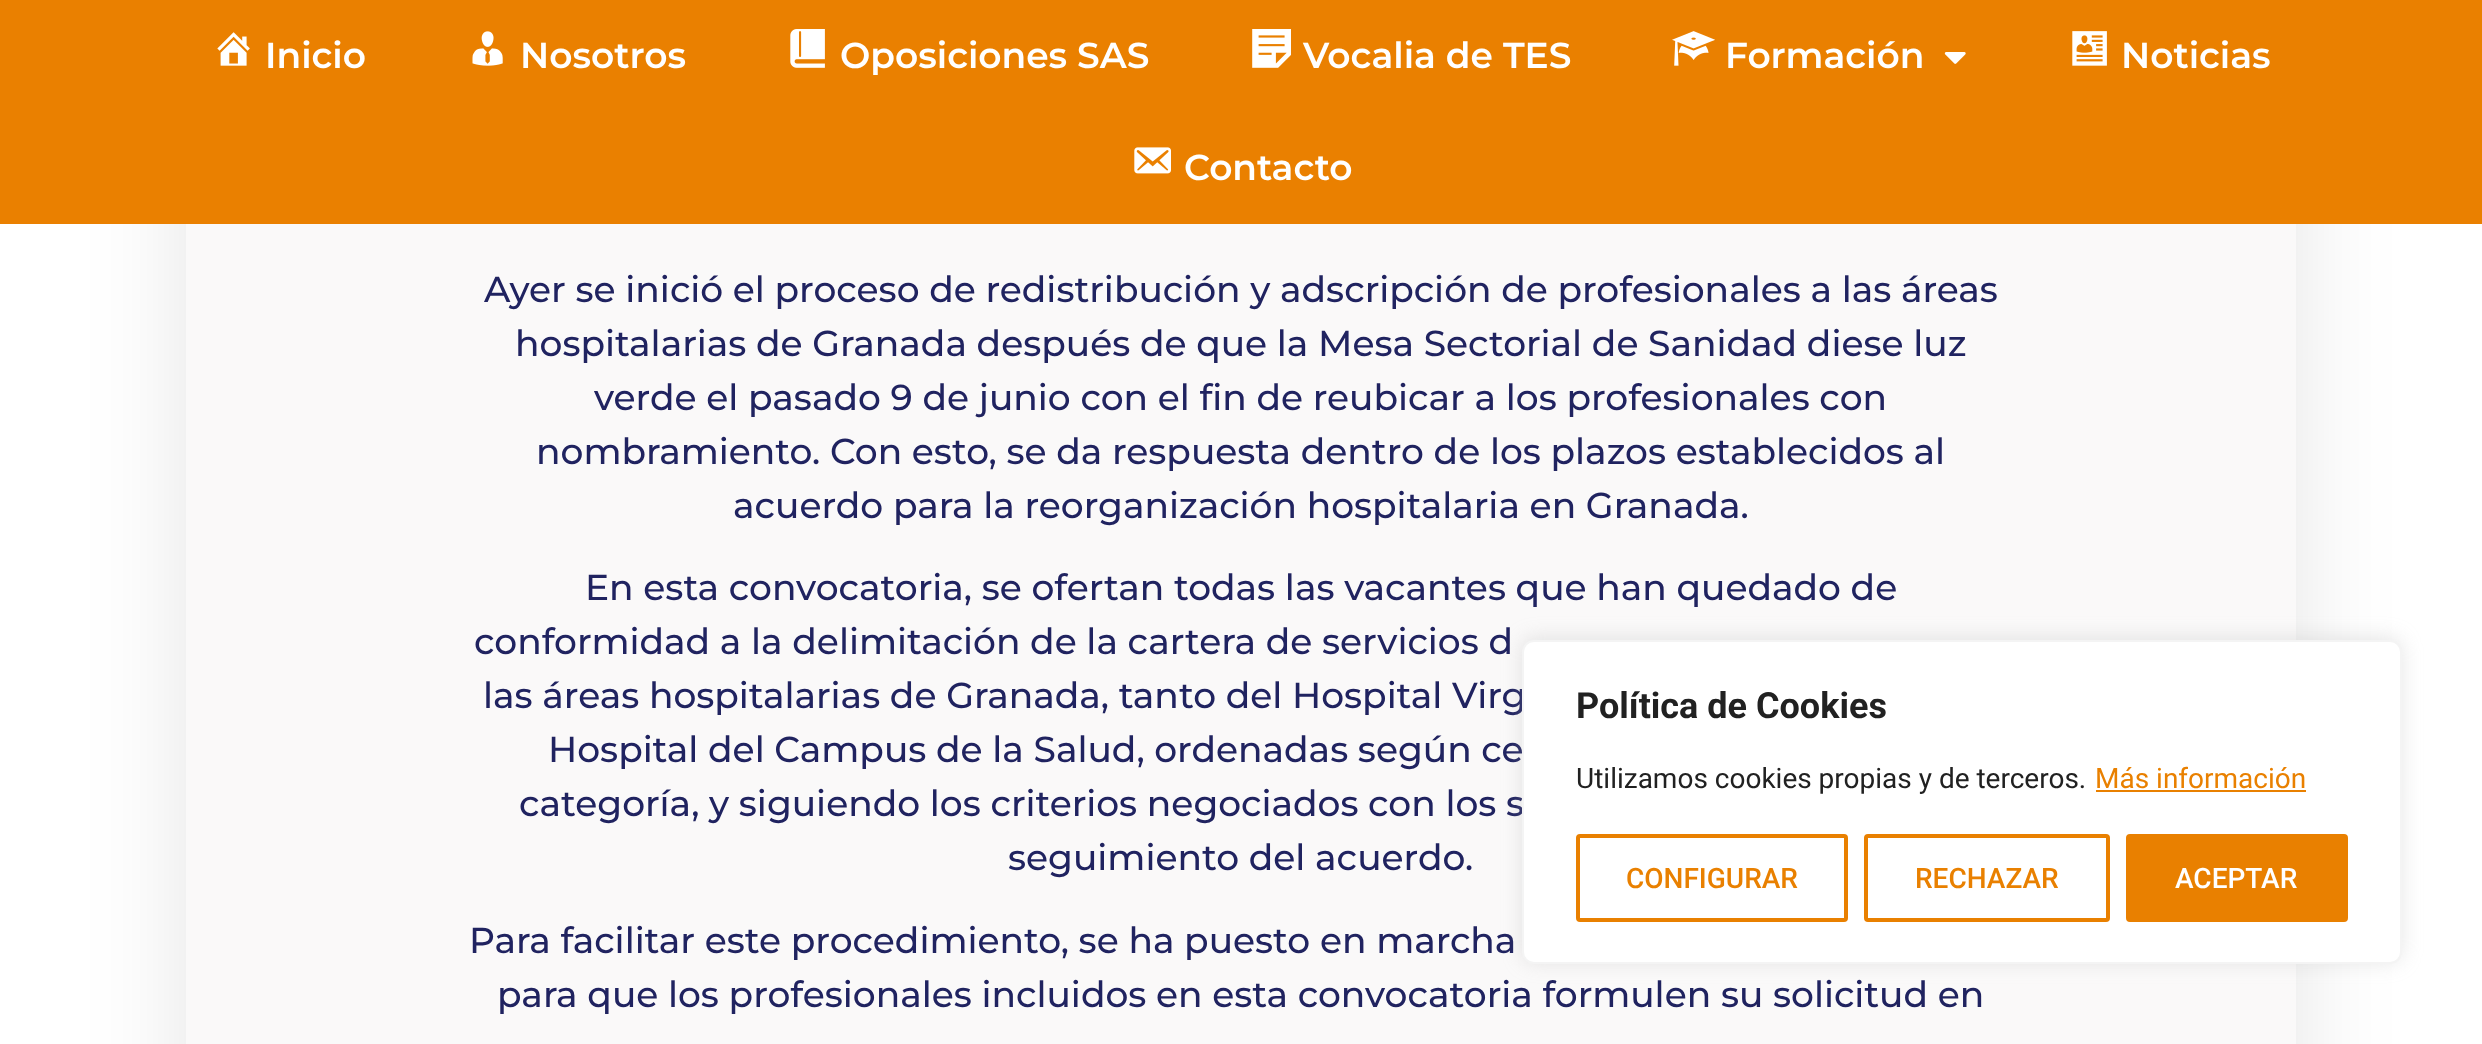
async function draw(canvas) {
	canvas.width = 2482;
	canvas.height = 1044;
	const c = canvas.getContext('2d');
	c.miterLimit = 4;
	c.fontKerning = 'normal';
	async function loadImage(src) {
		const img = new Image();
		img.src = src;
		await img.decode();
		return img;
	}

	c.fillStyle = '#fff';
	c.fillRect(0, 0, 2482, 1044);
	c.fillStyle = '#0000001a';
	c.filter = 'blur(50px)';
	c.beginPath();
	c.roundRect(186, -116, 2110, 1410, 100);
	c.fill();
	c.filter = 'none';
	c.fillStyle = '#ea8000';
	c.fillRect(0, 0, 2482, 224);
	c.drawImage(await loadImage('img1.png'), 217, 32, 33, 34);
	c.font = '600 36px Montserrat';
	c.fillStyle = '#fff';
	c.fillText('Inicio', 265, 68);
	c.drawImage(await loadImage('img2.png'), 472, 31, 31, 35);
	c.fillText('Nosotros', 520, 68);
	c.drawImage(await loadImage('img3.png'), 790, 29, 35, 39);
	c.fillText('Oposiciones SAS', 840, 68);
	c.drawImage(await loadImage('img4.png'), 1252, 29, 39, 39);
	c.fillText('Vocalia de TES', 1303, 68);
	c.drawImage(await loadImage('img5.png'), 1672, 31, 43, 35);
	c.fillText('Formación', 1725, 68);
	c.drawImage(await loadImage('img6.png'), 1944, 52, 22, 12);
	c.drawImage(await loadImage('img7.png'), 2072, 31, 35, 35);
	c.fillText('Noticias', 2121, 68);
	c.drawImage(await loadImage('img8.png'), 1134, 147, 37, 27);
	c.fillText('Contacto', 1184, 180);
	c.fillStyle = '#faf9f9';
	c.fillRect(186, 224, 2110, 820);
	c.font = '500 36px Montserrat';
	c.fillStyle = '#202360';
	for (const [text, x, y] of [
		['Ayer se inició el proceso de redistribución y adscripción de profesionales a las áreas', 484, 302],
		['hospitalarias de Granada después de que la Mesa Sectorial de Sanidad diese luz', 515, 356],
		['verde el pasado 9 de junio con el fin de reubicar a los profesionales con', 594, 410],
		['nombramiento. Con esto, se da respuesta dentro de los plazos establecidos al', 536, 464],
		['acuerdo para la reorganización hospitalaria en Granada.', 733, 518],
		['En esta convocatoria, se ofertan todas las vacantes que han quedado de', 585, 600],
		['conformidad a la delimitación de la cartera de servicios d', 474, 654],
		['las áreas hospitalarias de Granada, tanto del Hospital Virg', 483, 708],
		['Hospital del Campus de la Salud, ordenadas según ce', 548, 762],
		['categoría, y siguiendo los criterios negociados con los s', 519, 816],
		['seguimiento del acuerdo.', 1008, 870],
		['Para facilitar este procedimiento, se ha puesto en marcha', 469, 953],
		['para que los profesionales incluidos en esta convocatoria formulen su solicitud en', 497, 1007],
	]) {
		c.fillText(text, x, y);
	}
	c.fillStyle = '#acabab4d';
	c.filter = 'blur(10px)';
	c.beginPath();
	c.roundRect(1522, 638, 880, 324, 12);
	c.fill();
	c.filter = 'none';
	c.fillStyle = '#fff';
	c.beginPath();
	c.roundRect(1523, 641, 878, 322, 11);
	c.fill();
	c.strokeStyle = '#f4f4f4';
	c.lineWidth = 2;
	c.stroke();
	c.font = 'bold 36px Roboto';
	c.fillStyle = '#212121';
	c.fillText('Política de Cookies', 1576, 718);
	c.font = '28px Roboto';
	c.fillText('Utilizamos cookies propias y de terceros.', 1576, 788);
	c.fillStyle = '#e98000';
	c.fillText('Más información', 2095, 788);
	c.fillRect(2096, 790, 210, 2);
	c.beginPath();
	c.roundRect(1578, 836, 268, 84, 2);
	c.strokeStyle = '#e98000';
	c.lineWidth = 4;
	c.stroke();
	c.font = '500 28px Roboto';
	c.fillText('CONFIGURAR', 1626, 888);
	c.beginPath();
	c.roundRect(1866, 836, 242, 84, 2);
	c.stroke();
	c.fillText('RECHAZAR', 1915, 888);
	c.beginPath();
	c.roundRect(2128, 836, 218, 84, 2);
	c.fill();
	c.stroke();
	c.fillStyle = '#fff';
	c.fillText('ACEPTAR', 2175, 888);
}

draw(document.querySelector('canvas'));
